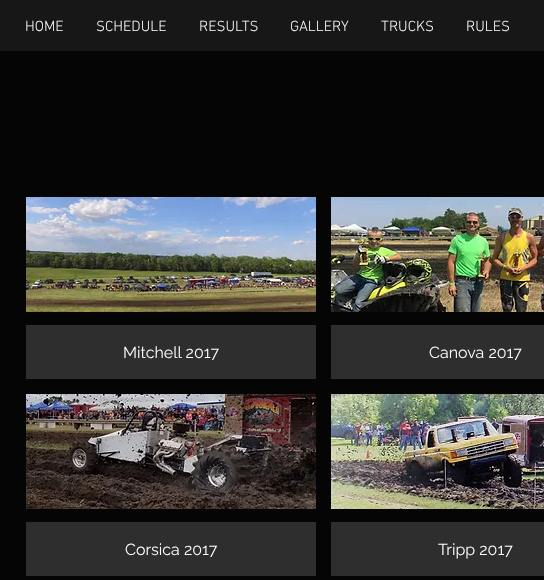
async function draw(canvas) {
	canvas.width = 544;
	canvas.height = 580;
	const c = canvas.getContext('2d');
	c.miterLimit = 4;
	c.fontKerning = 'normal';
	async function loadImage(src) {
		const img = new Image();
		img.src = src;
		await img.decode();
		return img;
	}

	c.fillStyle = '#050505';
	c.fillRect(0, 0, 544, 580);
	c.fillStyle = '#171717';
	c.fillRect(0, 0, 544, 51);
	c.font = '300 15px "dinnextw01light"';
	c.fillStyle = '#fff';
	for (const [text, x, y] of [
		['HOME', 25, 31],
		['SCHEDULE', 96, 31],
		['RESULTS', 199, 31],
		['GALLERY', 290, 31],
		['TRUCKS', 381, 31],
		['RULES', 466, 31],
	]) {
		c.fillText(text, x, y);
	}
	c.drawImage(await loadImage('img1.png'), 26, 197, 290, 115);
	c.fillStyle = '#2f2e2e';
	c.fillRect(26, 325, 290, 54);
	c.font = '16px Raleway';
	c.fillStyle = '#fff';
	c.fillText('Mitchell 2017', 123, 358);
	c.drawImage(await loadImage('img2.png'), 331, 197, 213, 115);
	c.fillStyle = '#2f2e2e';
	c.fillRect(331, 325, 213, 54);
	c.fillStyle = '#fff';
	c.fillText('Canova 2017', 429, 358);
	c.drawImage(await loadImage('img3.png'), 26, 394, 290, 115);
	c.fillStyle = '#2f2e2e';
	c.fillRect(26, 522, 290, 54);
	c.fillStyle = '#fff';
	c.fillText('Corsica 2017', 125, 555);
	c.drawImage(await loadImage('img4.png'), 331, 394, 213, 115);
	c.fillStyle = '#2f2e2e';
	c.fillRect(331, 522, 213, 54);
	c.fillStyle = '#fff';
	c.fillText('Tripp 2017', 438, 555);
}

draw(document.querySelector('canvas'));
